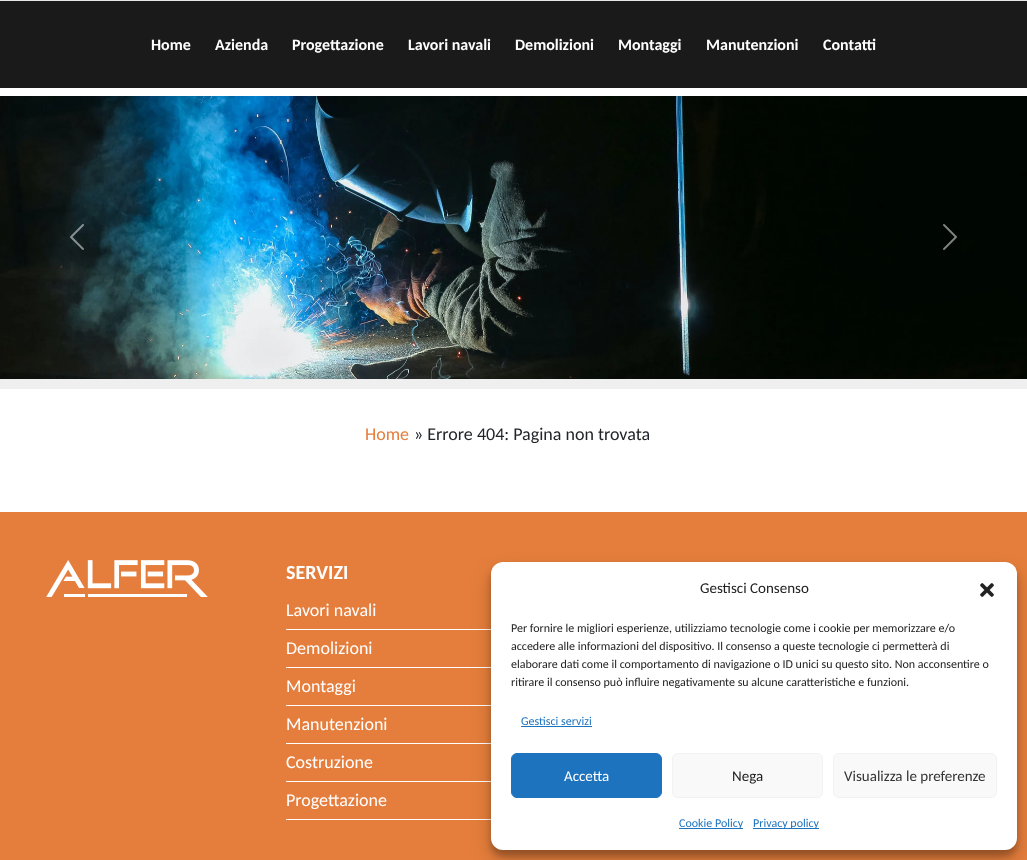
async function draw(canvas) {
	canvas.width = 1027;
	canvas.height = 860;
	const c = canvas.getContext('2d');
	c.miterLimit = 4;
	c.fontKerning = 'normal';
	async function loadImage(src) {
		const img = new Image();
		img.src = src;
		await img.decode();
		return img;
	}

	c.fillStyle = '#fff';
	c.fillRect(0, 0, 1027, 860);
	c.fillStyle = '#e6e6e6';
	c.fillRect(0, 0, 1027, 1);
	c.fillStyle = '#1a1a1a';
	c.fillRect(0, 1, 1027, 87);
	c.font = 'bold 16px Carlito';
	c.fillStyle = '#fff';
	for (const [text, x, y] of [
		['Home', 151, 50],
		['Azienda', 215, 50],
		['Progettazione', 292, 50],
		['Lavori navali', 408, 50],
		['Demolizioni', 515, 50],
		['Montaggi', 618, 50],
		['Manutenzioni', 706, 50],
		['Contatti', 823, 50],
	]) {
		c.fillText(text, x, y);
	}
	c.fillStyle = '#efefef';
	c.fillRect(0, 379, 1027, 10);
	c.drawImage(await loadImage('img1.png'), 0, 96, 1027, 283);
	c.drawImage(await loadImage('img2.png'), 70, 224, 14, 26);
	c.drawImage(await loadImage('img3.png'), 943, 224, 14, 26);
	c.font = '18px Carlito';
	c.fillStyle = '#e57e3c';
	c.fillText('Home', 365, 440);
	c.fillStyle = '#212529';
	c.fillText('» Errore 404: Pagina non trovata', 414, 440);
	c.fillStyle = '#e57e3c';
	c.fillRect(0, 512, 1027, 348);
	c.drawImage(await loadImage('img4.png'), 46, 560, 162, 37);
	c.font = 'bold 20px Carlito';
	c.fillStyle = '#fff';
	c.fillText('SERVIZI', 286, 579);
	c.fillRect(286, 629, 205, 1);
	c.font = '18px Carlito';
	c.fillText('Lavori navali', 286, 616);
	c.fillRect(286, 667, 205, 1);
	c.fillText('Demolizioni', 286, 654);
	c.fillRect(286, 705, 205, 1);
	c.fillText('Montaggi', 286, 692);
	c.fillRect(286, 743, 205, 1);
	c.fillText('Manutenzioni', 286, 730);
	c.fillRect(286, 781, 205, 1);
	c.fillText('Costruzione', 286, 768);
	c.fillRect(286, 819, 205, 1);
	c.fillText('Progettazione', 286, 806);
	c.fillStyle = '#0000003b';
	c.filter = 'blur(3px)';
	c.beginPath();
	c.roundRect(491, 568, 526, 288, 12);
	c.fill();
	c.filter = 'none';
	c.fillStyle = '#00000030';
	c.filter = 'blur(10px)';
	c.beginPath();
	c.roundRect(491, 572, 526, 288, 12);
	c.fill();
	c.filter = 'none';
	c.fillStyle = '#fff';
	c.beginPath();
	c.roundRect(491, 562, 526, 288, 12);
	c.fill();
	c.font = '15px Carlito';
	c.fillStyle = '#222';
	c.fillText('Gestisci Consenso', 700, 593);
	c.drawImage(await loadImage('img5.png'), 980, 583, 14, 14);
	c.font = '12px Carlito';
	for (const [text, x, y] of [
		['Per fornire le migliori esperienze, utilizziamo tecnologie come i cookie per memorizzare e/o', 511, 632],
		['accedere alle informazioni del dispositivo. Il consenso a queste tecnologie ci permetterà di', 511, 650],
		['elaborare dati come il comportamento di navigazione o ID unici su questo sito. Non acconsentire o', 511, 668],
		['ritirare il consenso può influire negativamente su alcune caratteristiche e funzioni.', 511, 686],
	]) {
		c.fillText(text, x, y);
	}
	c.fillStyle = '#1e73be';
	c.fillText('Gestisci servizi', 521, 725);
	c.fillRect(521, 726, 71, 1);
	c.beginPath();
	c.roundRect(511.5, 753.5, 150, 44, 5.5);
	c.fill();
	c.strokeStyle = '#1e73be';
	c.stroke();
	c.font = '15px Carlito';
	c.fillStyle = '#fff';
	c.fillText('Accetta', 564, 781);
	c.fillStyle = '#f9f9f9';
	c.beginPath();
	c.roundRect(672.5, 753.5, 150, 44, 5.5);
	c.fill();
	c.strokeStyle = '#f2f2f2';
	c.stroke();
	c.fillStyle = '#222';
	c.fillText('Nega', 732, 781);
	c.fillStyle = '#f9f9f9';
	c.beginPath();
	c.roundRect(833.5, 753.5, 163, 44, 5.5);
	c.fill();
	c.stroke();
	c.fillStyle = '#333';
	c.fillText('Visualizza le preferenze', 844, 781);
	c.fillStyle = '#1e73be';
	c.fillRect(679, 828, 64, 1);
	c.font = '12px Carlito';
	c.fillText('Cookie Policy', 679, 827);
	c.fillRect(753, 828, 66, 1);
	c.fillText('Privacy policy', 753, 827);
}

draw(document.querySelector('canvas'));
